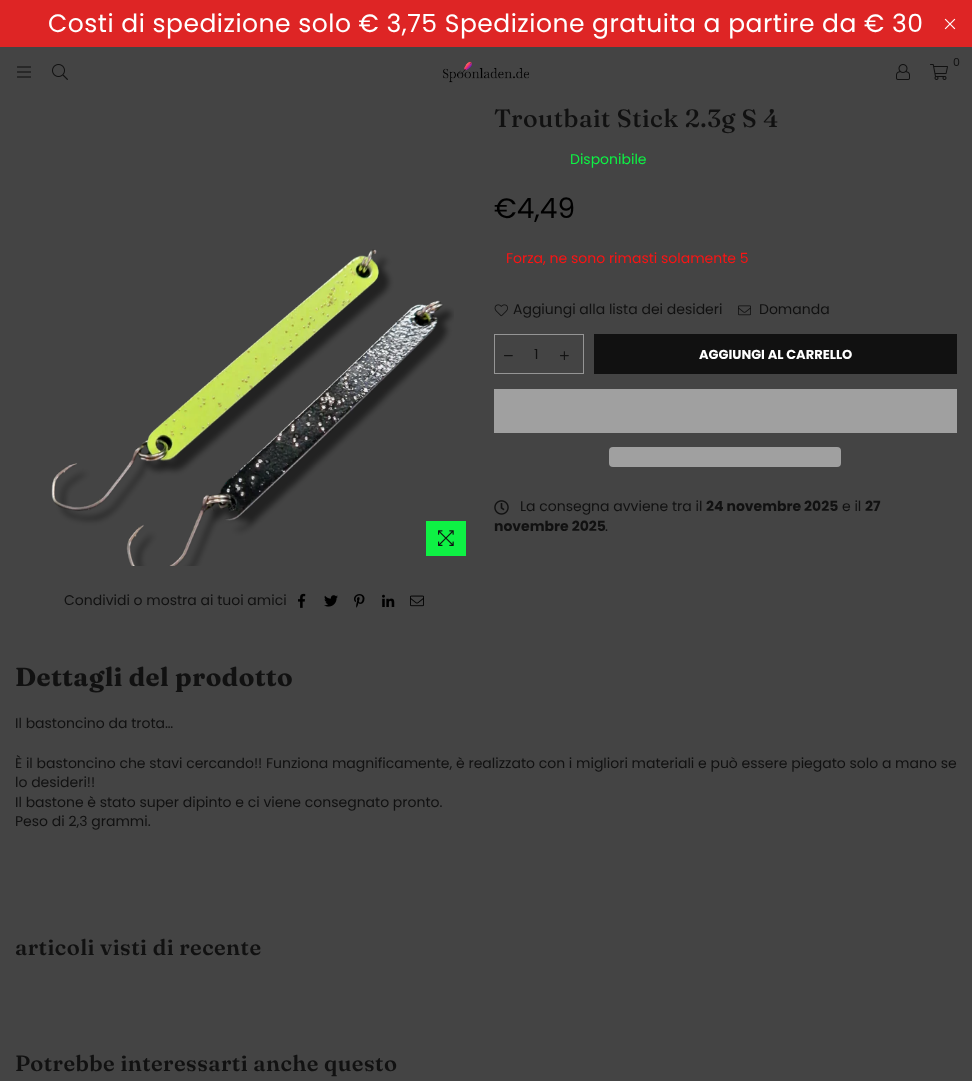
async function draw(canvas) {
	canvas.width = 972;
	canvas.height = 1081;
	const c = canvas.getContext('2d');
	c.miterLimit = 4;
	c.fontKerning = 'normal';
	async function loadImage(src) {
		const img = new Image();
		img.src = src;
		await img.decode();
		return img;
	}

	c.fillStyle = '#444';
	c.fillRect(0, 0, 972, 1081);
	c.fillStyle = '#de2525';
	c.fillRect(0, 0, 972, 47);
	c.letterSpacing = '0.5px';
	c.font = '25px Poppins';
	c.fillStyle = '#fff';
	c.fillText('Costi di spedizione solo € 3,75 Spedizione gratuita a partire da € 30', 48, 32);
	c.drawImage(await loadImage('img1.png'), 944, 18, 12, 12);
	c.drawImage(await loadImage('img2.png'), 17, 66, 14, 12);
	c.drawImage(await loadImage('img3.png'), 52, 64, 16, 16);
	c.drawImage(await loadImage('img4.png'), 443, 61, 86, 22);
	c.letterSpacing = '0px';
	c.font = '11px Poppins';
	c.fillStyle = '#111';
	c.fillText('0', 953, 66);
	c.drawImage(await loadImage('img5.png'), 930, 64, 18, 16);
	c.drawImage(await loadImage('img6.png'), 896, 64, 14, 16);
	c.letterSpacing = '0.5px';
	c.font = '500 25px Fraunces';
	c.fillText('Troutbait Stick 2.3g S 4', 494, 127);
	c.letterSpacing = '0px';
	c.font = '14px Poppins';
	c.fillStyle = '#0ef144';
	c.fillText('Disponibile', 570, 164);
	c.font = '28px Poppins';
	c.fillStyle = '#000';
	c.fillText('€4,49', 494, 218);
	c.font = '14px Poppins';
	c.fillStyle = '#fa1414';
	c.fillText('Forza, ne sono rimasti solamente 5', 506, 263);
	c.drawImage(await loadImage('img7.png'), 494, 304, 14, 13);
	c.fillStyle = '#111';
	c.fillText('Aggiungi alla lista dei desideri', 513, 314);
	c.drawImage(await loadImage('img8.png'), 738, 305, 13, 11);
	c.fillText('Domanda', 759, 314);
	c.strokeStyle = '#959595';
	c.strokeRect(494.5, 334.5, 89, 39);
	c.drawImage(await loadImage('img9.png'), 504, 355, 9, 2);
	c.fillText('1', 534, 359);
	c.drawImage(await loadImage('img10.png'), 560, 351, 9, 9);
	c.fillRect(594, 334, 363, 40);
	c.font = 'bold 13px Poppins';
	c.fillStyle = '#fff';
	c.fillText('AGGIUNGI AL CARRELLO', 699, 359);
	c.fillStyle = '#a0a0a0';
	c.fillRect(494, 389, 463, 44);
	c.beginPath();
	c.roundRect(609, 447, 232, 20, 4);
	c.fill();
	c.drawImage(await loadImage('img11.png'), 494, 500, 15, 15);
	c.font = '14px Poppins';
	c.fillStyle = '#111';
	c.fillText('La consegna avviene tra il', 520, 511);
	c.font = 'bold 14px Poppins';
	c.fillText('24 novembre 2025', 706, 511);
	c.font = '14px Poppins';
	c.fillText('e il', 842, 511);
	c.font = 'bold 14px Poppins';
	c.fillText('27', 865, 511);
	c.fillText('novembre 2025', 494, 531);
	c.font = '14px Poppins';
	c.fillText('.', 605, 531);
	c.drawImage(await loadImage('img12.png'), 51, 249, 403, 317);
	c.fillStyle = '#0ef144';
	c.fillRect(426, 521, 40, 35);
	c.drawImage(await loadImage('img13.png'), 438, 530, 16, 16);
	c.fillStyle = '#111';
	c.fillText('Condividi o mostra ai tuoi amici', 64, 605);
	c.drawImage(await loadImage('img14.png'), 298, 593, 8, 15);
	c.drawImage(await loadImage('img15.png'), 324, 595, 14, 12);
	c.drawImage(await loadImage('img16.png'), 354, 594, 11, 14);
	c.drawImage(await loadImage('img17.png'), 382, 594, 13, 13);
	c.drawImage(await loadImage('img18.png'), 410, 595, 14, 12);
	c.letterSpacing = '0.5px';
	c.font = 'bold 26px Fraunces';
	c.fillText('Dettagli del prodotto', 15, 686);
	c.letterSpacing = '0px';
	c.font = '14px Poppins';
	for (const [text, x, y] of [
		['Il bastoncino da trota…', 15, 728],
		['È il bastoncino che stavi cercando!! Funziona magnificamente, è realizzato con i migliori materiali e può essere piegato solo a mano se', 15, 768],
		['lo desideri!!', 15, 787],
		['Il bastone è stato super dipinto e ci viene consegnato pronto.', 15, 807],
		['Peso di 2,3 grammi.', 15, 826],
	]) {
		c.fillText(text, x, y);
	}
	c.letterSpacing = '0.45px';
	c.font = '600 22px Fraunces';
	c.fillText('articoli visti di recente', 15, 955);
	c.fillText('Potrebbe interessarti anche questo', 15, 1071);
}

draw(document.querySelector('canvas'));
